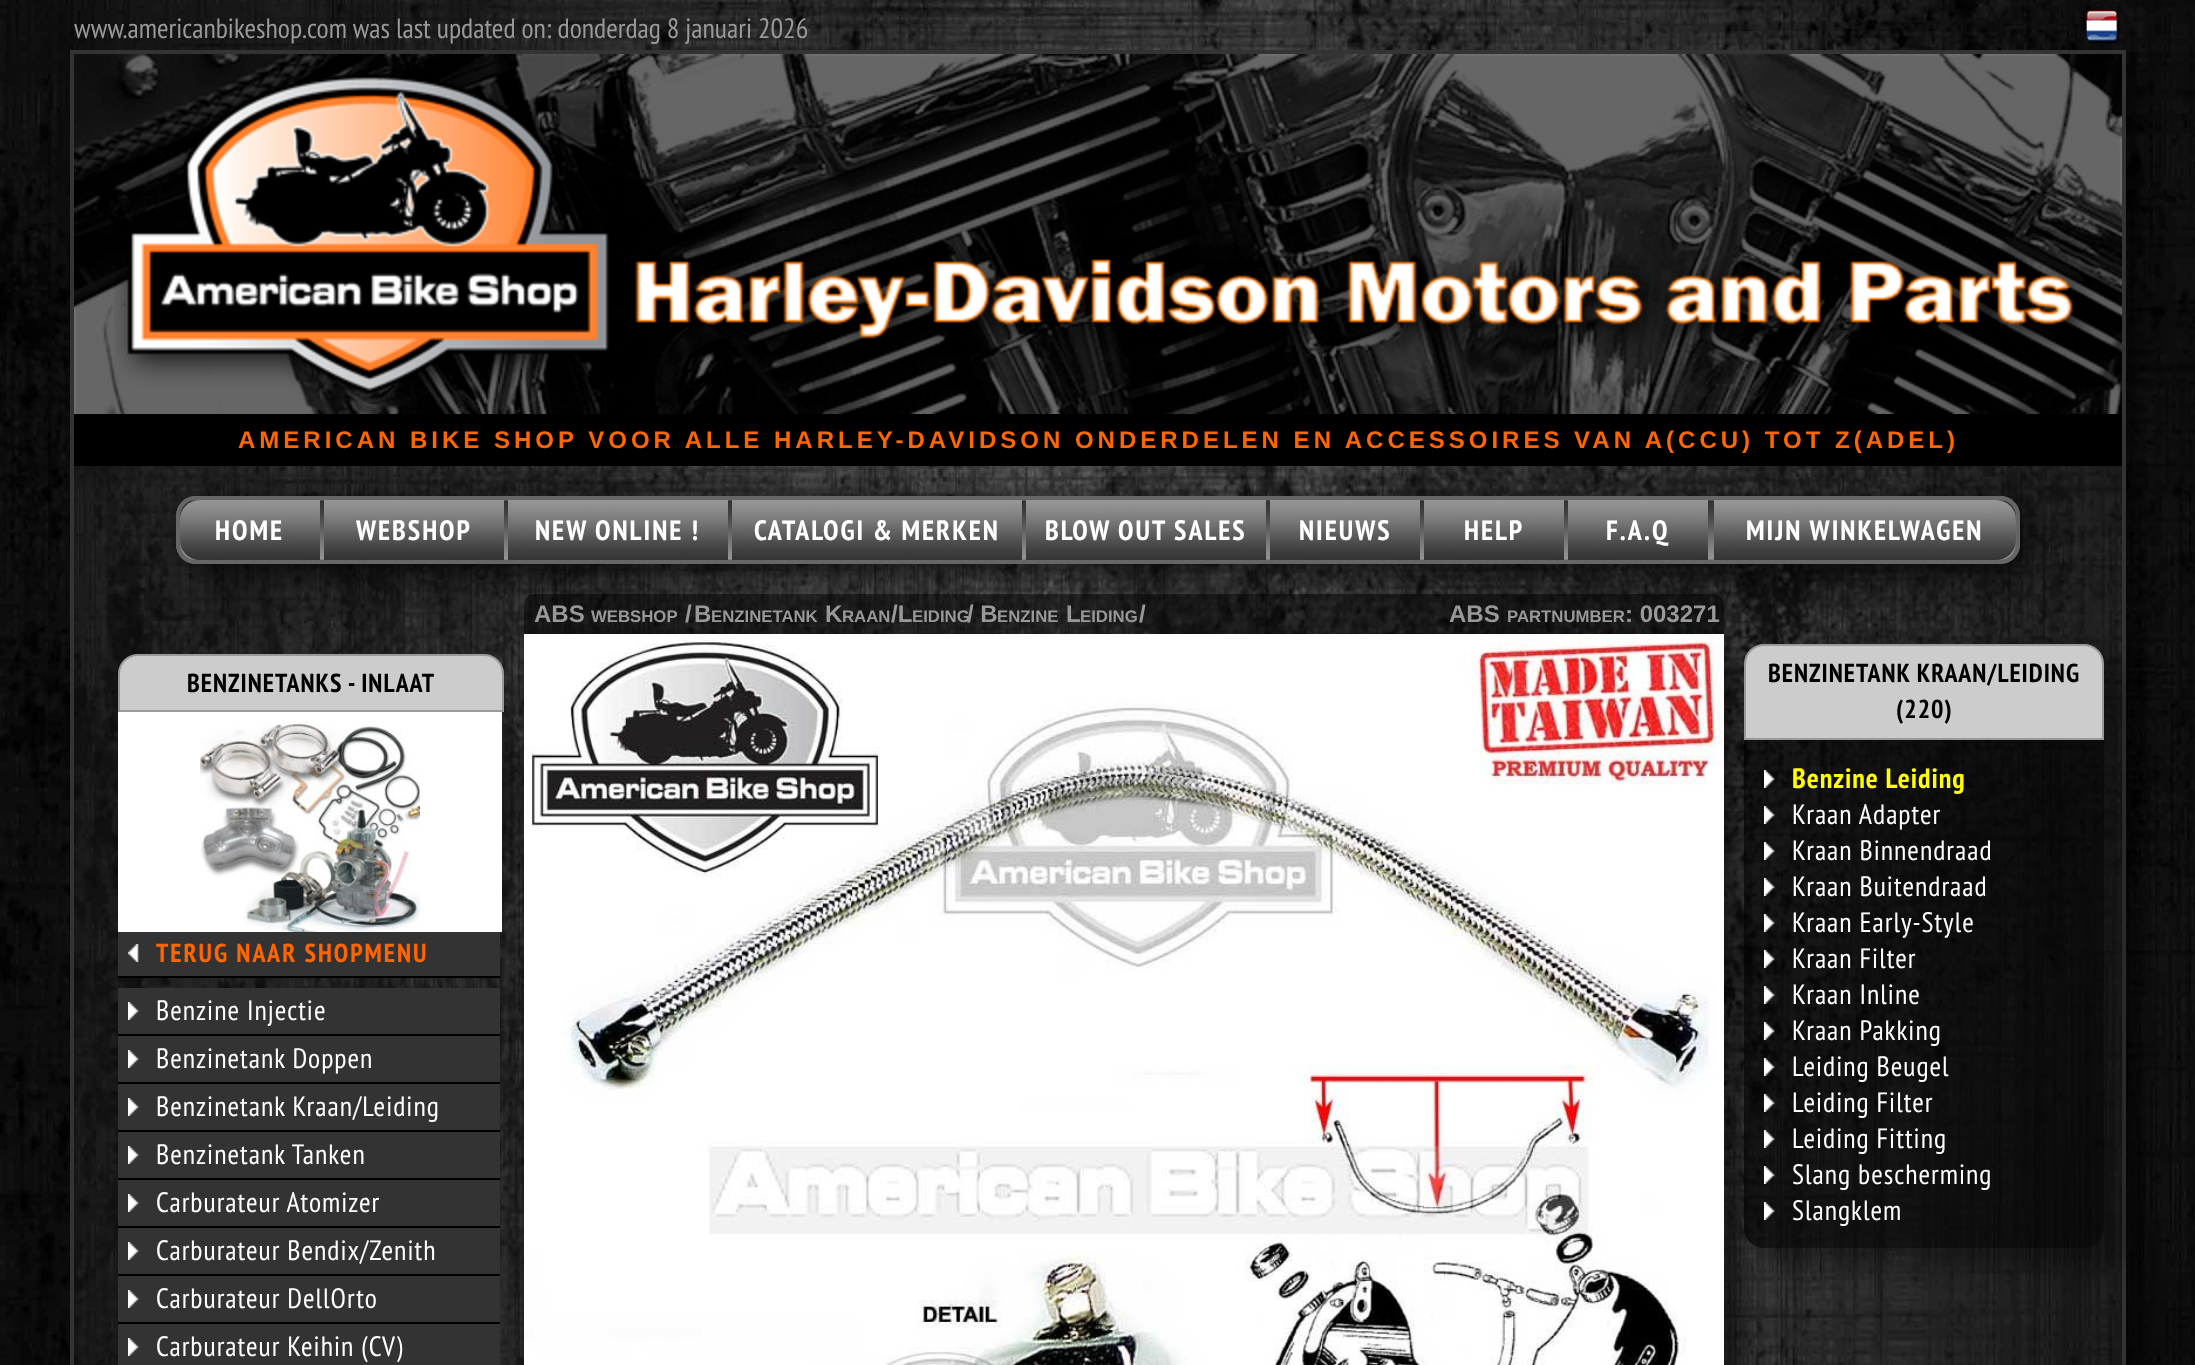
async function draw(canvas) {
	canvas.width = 2195;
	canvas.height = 1365;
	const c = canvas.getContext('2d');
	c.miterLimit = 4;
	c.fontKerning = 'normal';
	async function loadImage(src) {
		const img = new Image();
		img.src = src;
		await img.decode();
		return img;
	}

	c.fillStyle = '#fff';
	c.fillRect(0, 0, 2195, 1365);
	c.drawImage(await loadImage('img1.png'), 0, 0, 2195, 1365);
	c.font = '28px PT Sans Narrow';
	c.fillStyle = '#999';
	c.fillText('www.americanbikeshop.com was last updated on: donderdag 8 januari 2026', 74, 38);
	c.drawImage(await loadImage('img2.png'), 2086, 10, 34, 34);
	c.save();
	c.beginPath();
	c.rect(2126, 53, 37, 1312);
	c.clip();
	c.fillStyle = '#00000080';
	c.filter = 'blur(10px)';
	c.beginPath();
	c.rect(90, 70, 2056, 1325);
	c.fill();
	c.filter = 'none';
	c.restore();
	c.strokeStyle = '#333';
	c.lineWidth = 4;
	c.strokeRect(72, 52, 2052, 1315);
	c.drawImage(await loadImage('img3.png'), 74, 54, 2048, 360);
	c.drawImage(await loadImage('img4.png'), 114, 69, 1979, 345);
	c.fillStyle = '#000';
	c.fillRect(74, 414, 2048, 52);
	c.fillStyle = '#000000bf';
	c.filter = 'blur(20px)';
	c.beginPath();
	c.roundRect(186, 506, 1844, 68, 20);
	c.fill();
	c.filter = 'none';
	c.letterSpacing = '4px';
	c.font = 'bold 24px Liberation Sans';
	c.fillStyle = '#f60';
	c.fillText('AMERICAN BIKE SHOP VOOR ALLE HARLEY-DAVIDSON ONDERDELEN EN ACCESSOIRES VAN A(CCU) TOT Z(ADEL)', 238, 448);
	c.drawImage(await loadImage('img5.png'), 176, 496, 1844, 68);
	c.beginPath();
	c.roundRect(178, 498, 1840, 64, 18);
	c.strokeStyle = '#666';
	c.stroke();
	c.drawImage(await loadImage('img6.png'), 180, 500, 140, 60);
	c.letterSpacing = '2px';
	c.font = 'bold 28px PT Sans Narrow';
	c.fillStyle = '#fff';
	c.fillText('HOME', 215, 540);
	c.drawImage(await loadImage('img7.png'), 324, 500, 180, 60);
	c.fillText('WEBSHOP', 356, 540);
	c.drawImage(await loadImage('img8.png'), 508, 500, 220, 60);
	c.fillText('NEW ONLINE !', 535, 540);
	c.drawImage(await loadImage('img9.png'), 732, 500, 290, 60);
	c.fillText('CATALOGI & MERKEN', 754, 540);
	c.drawImage(await loadImage('img10.png'), 1026, 500, 240, 60);
	c.fillText('BLOW OUT SALES', 1045, 540);
	c.drawImage(await loadImage('img11.png'), 1270, 500, 150, 60);
	c.fillText('NIEUWS', 1299, 540);
	c.drawImage(await loadImage('img12.png'), 1424, 500, 140, 60);
	c.fillText('HELP', 1464, 540);
	c.drawImage(await loadImage('img12.png'), 1568, 500, 140, 60);
	c.fillText('F.A.Q', 1606, 540);
	c.drawImage(await loadImage('img13.png'), 1714, 500, 302, 60);
	c.fillText('MIJN WINKELWAGEN', 1746, 540);
	c.fillStyle = '#00000080';
	c.beginPath();
	c.roundRect(524, 594, 1200, 40, [10, 10, 0, 0]);
	c.fill();
	c.letterSpacing = '0px';
	c.font = 'bold 24px Liberation Sans';
	c.fillStyle = '#999';
	c.fillText('ABS', 534, 622);
	c.font = 'bold 16.75px Liberation Sans';
	c.fillText('WEBSHOP', 591, 622);
	c.font = 'bold 24px Liberation Sans';
	c.fillText('/', 685, 622);
	c.fillText('B', 694, 622);
	c.font = 'bold 16.75px Liberation Sans';
	c.fillText('ENZINETANK', 711, 622);
	c.font = 'bold 24px Liberation Sans';
	c.fillText('K', 825, 622);
	c.font = 'bold 16.75px Liberation Sans';
	c.fillText('RAAN', 842, 622);
	c.font = 'bold 24px Liberation Sans';
	c.fillText('/L', 891, 622);
	c.font = 'bold 16.75px Liberation Sans';
	c.fillText('EIDING', 912, 622);
	c.font = 'bold 24px Liberation Sans';
	c.fillText('/ B', 967, 622);
	c.font = 'bold 16.75px Liberation Sans';
	c.fillText('ENZINE', 997, 622);
	c.font = 'bold 24px Liberation Sans';
	c.fillText('L', 1066, 622);
	c.font = 'bold 16.75px Liberation Sans';
	c.fillText('EIDING', 1080, 622);
	c.font = 'bold 24px Liberation Sans';
	c.fillText('/', 1139, 622);
	c.fillText('ABS', 1449, 622);
	c.font = 'bold 16.75px Liberation Sans';
	c.fillText('PARTNUMBER', 1507, 622);
	c.font = 'bold 24px Liberation Sans';
	c.fillText(': 003271', 1625, 622);
	c.fillStyle = '#00000080';
	c.filter = 'blur(10px)';
	c.beginPath();
	c.rect(544, 654, 1200, 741);
	c.fill();
	c.filter = 'none';
	c.drawImage(await loadImage('img14.png'), 524, 634, 1200, 731);
	c.fillStyle = '#ccc';
	c.beginPath();
	c.roundRect(119, 655, 384, 56, [19, 19, 0, 0]);
	c.fill();
	c.strokeStyle = '#999';
	c.lineWidth = 2;
	c.stroke();
	c.letterSpacing = '1px';
	c.font = 'bold 26px PT Sans Narrow';
	c.fillStyle = '#000';
	c.fillText('BENZINETANKS - INLAAT', 187, 692);
	c.fillStyle = '#fff';
	c.fillRect(118, 712, 384, 220);
	c.drawImage(await loadImage('img15.png'), 200, 721, 220, 211);
	c.fillStyle = '#333';
	c.fillRect(118, 932, 382, 44);
	c.fillStyle = '#000';
	c.fillRect(118, 976, 382, 2);
	c.drawImage(await loadImage('img16.png'), 128, 944, 11, 18);
	c.letterSpacing = '2px';
	c.fillStyle = '#f60';
	c.fillText('TERUG NAAR SHOPMENU', 156, 962);
	c.fillStyle = '#333';
	c.fillRect(118, 988, 382, 46);
	c.fillStyle = '#000';
	c.fillRect(118, 1034, 382, 2);
	c.drawImage(await loadImage('img17.png'), 128, 1002, 11, 18);
	c.letterSpacing = '1px';
	c.font = '28px PT Sans Narrow';
	c.fillStyle = '#fff';
	c.fillText('Benzine Injectie', 156, 1020);
	c.fillStyle = '#333';
	c.fillRect(118, 1036, 382, 46);
	c.fillStyle = '#000';
	c.fillRect(118, 1082, 382, 2);
	c.drawImage(await loadImage('img17.png'), 128, 1050, 11, 18);
	c.fillStyle = '#fff';
	c.fillText('Benzinetank Doppen', 156, 1068);
	c.fillStyle = '#333';
	c.fillRect(118, 1084, 382, 46);
	c.fillStyle = '#000';
	c.fillRect(118, 1130, 382, 2);
	c.drawImage(await loadImage('img17.png'), 128, 1098, 11, 18);
	c.fillStyle = '#fff';
	c.fillText('Benzinetank Kraan/Leiding', 156, 1116);
	c.fillStyle = '#333';
	c.fillRect(118, 1132, 382, 46);
	c.fillStyle = '#000';
	c.fillRect(118, 1178, 382, 2);
	c.drawImage(await loadImage('img17.png'), 128, 1146, 11, 18);
	c.fillStyle = '#fff';
	c.fillText('Benzinetank Tanken', 156, 1164);
	c.fillStyle = '#333';
	c.fillRect(118, 1180, 382, 46);
	c.fillStyle = '#000';
	c.fillRect(118, 1226, 382, 2);
	c.drawImage(await loadImage('img17.png'), 128, 1194, 11, 18);
	c.fillStyle = '#fff';
	c.fillText('Carburateur Atomizer', 156, 1212);
	c.fillStyle = '#333';
	c.fillRect(118, 1228, 382, 46);
	c.fillStyle = '#000';
	c.fillRect(118, 1274, 382, 2);
	c.drawImage(await loadImage('img17.png'), 128, 1242, 11, 18);
	c.fillStyle = '#fff';
	c.fillText('Carburateur Bendix/Zenith', 156, 1260);
	c.fillStyle = '#333';
	c.fillRect(118, 1276, 382, 46);
	c.fillStyle = '#000';
	c.fillRect(118, 1322, 382, 2);
	c.drawImage(await loadImage('img17.png'), 128, 1290, 11, 18);
	c.fillStyle = '#fff';
	c.fillText('Carburateur DellOrto', 156, 1308);
	c.fillStyle = '#333';
	c.fillRect(118, 1324, 382, 41);
	c.drawImage(await loadImage('img17.png'), 128, 1338, 11, 18);
	c.fillStyle = '#fff';
	c.fillText('Carburateur Keihin (CV)', 156, 1356);
	c.save();
	c.beginPath();
	c.moveTo(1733, 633);
	c.lineTo(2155, 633);
	c.lineTo(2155, 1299);
	c.lineTo(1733, 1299);
	c.closePath();
	c.moveTo(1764, 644);
	c.lineTo(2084, 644);
	c.bezierCurveTo(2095, 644, 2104, 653, 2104, 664);
	c.lineTo(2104, 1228);
	c.bezierCurveTo(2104, 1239, 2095, 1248, 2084, 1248);
	c.lineTo(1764, 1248);
	c.bezierCurveTo(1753, 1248, 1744, 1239, 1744, 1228);
	c.lineTo(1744, 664);
	c.bezierCurveTo(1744, 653, 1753, 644, 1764, 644);
	c.closePath();
	c.clip('evenodd');
	c.fillStyle = '#00000059';
	c.filter = 'blur(10px)';
	c.beginPath();
	c.roundRect(1764, 664, 360, 604, 20);
	c.fill();
	c.filter = 'none';
	c.restore();
	c.fillStyle = '#00000099';
	c.beginPath();
	c.roundRect(1744, 644, 360, 604, 20);
	c.fill();
	c.fillStyle = '#ccc';
	c.beginPath();
	c.roundRect(1745, 645, 358, 94, [19, 19, 0, 0]);
	c.fill();
	c.stroke();
	c.font = 'bold 26px PT Sans Narrow';
	c.fillStyle = '#000';
	c.fillText('BENZINETANK KRAAN/LEIDING', 1768, 682);
	c.fillText('(220)', 1896, 718);
	c.drawImage(await loadImage('img18.png'), 1764, 770, 11, 18);
	c.font = 'bold 28px PT Sans Narrow';
	c.fillStyle = '#ff0';
	c.fillText('Benzine Leiding', 1792, 788);
	c.drawImage(await loadImage('img19.png'), 1764, 806, 11, 18);
	c.font = '28px PT Sans Narrow';
	c.fillStyle = '#fff';
	c.fillText('Kraan Adapter', 1792, 824);
	c.drawImage(await loadImage('img20.png'), 1764, 842, 11, 18);
	c.fillText('Kraan Binnendraad', 1792, 860);
	c.drawImage(await loadImage('img21.png'), 1764, 878, 11, 18);
	c.fillText('Kraan Buitendraad', 1792, 896);
	c.drawImage(await loadImage('img22.png'), 1764, 914, 11, 18);
	c.fillText('Kraan Early-Style', 1792, 932);
	c.drawImage(await loadImage('img23.png'), 1764, 950, 11, 18);
	c.fillText('Kraan Filter', 1792, 968);
	c.drawImage(await loadImage('img24.png'), 1764, 986, 11, 18);
	c.fillText('Kraan Inline', 1792, 1004);
	c.drawImage(await loadImage('img25.png'), 1764, 1022, 11, 18);
	c.fillText('Kraan Pakking', 1792, 1040);
	c.drawImage(await loadImage('img26.png'), 1764, 1058, 11, 18);
	c.fillText('Leiding Beugel', 1792, 1076);
	c.drawImage(await loadImage('img27.png'), 1764, 1094, 11, 18);
	c.fillText('Leiding Filter', 1792, 1112);
	c.drawImage(await loadImage('img28.png'), 1764, 1130, 11, 18);
	c.fillText('Leiding Fitting', 1792, 1148);
	c.drawImage(await loadImage('img29.png'), 1764, 1166, 11, 18);
	c.fillText('Slang bescherming', 1792, 1184);
	c.drawImage(await loadImage('img30.png'), 1764, 1202, 11, 18);
	c.fillText('Slangklem', 1792, 1220);
}

draw(document.querySelector('canvas'));
